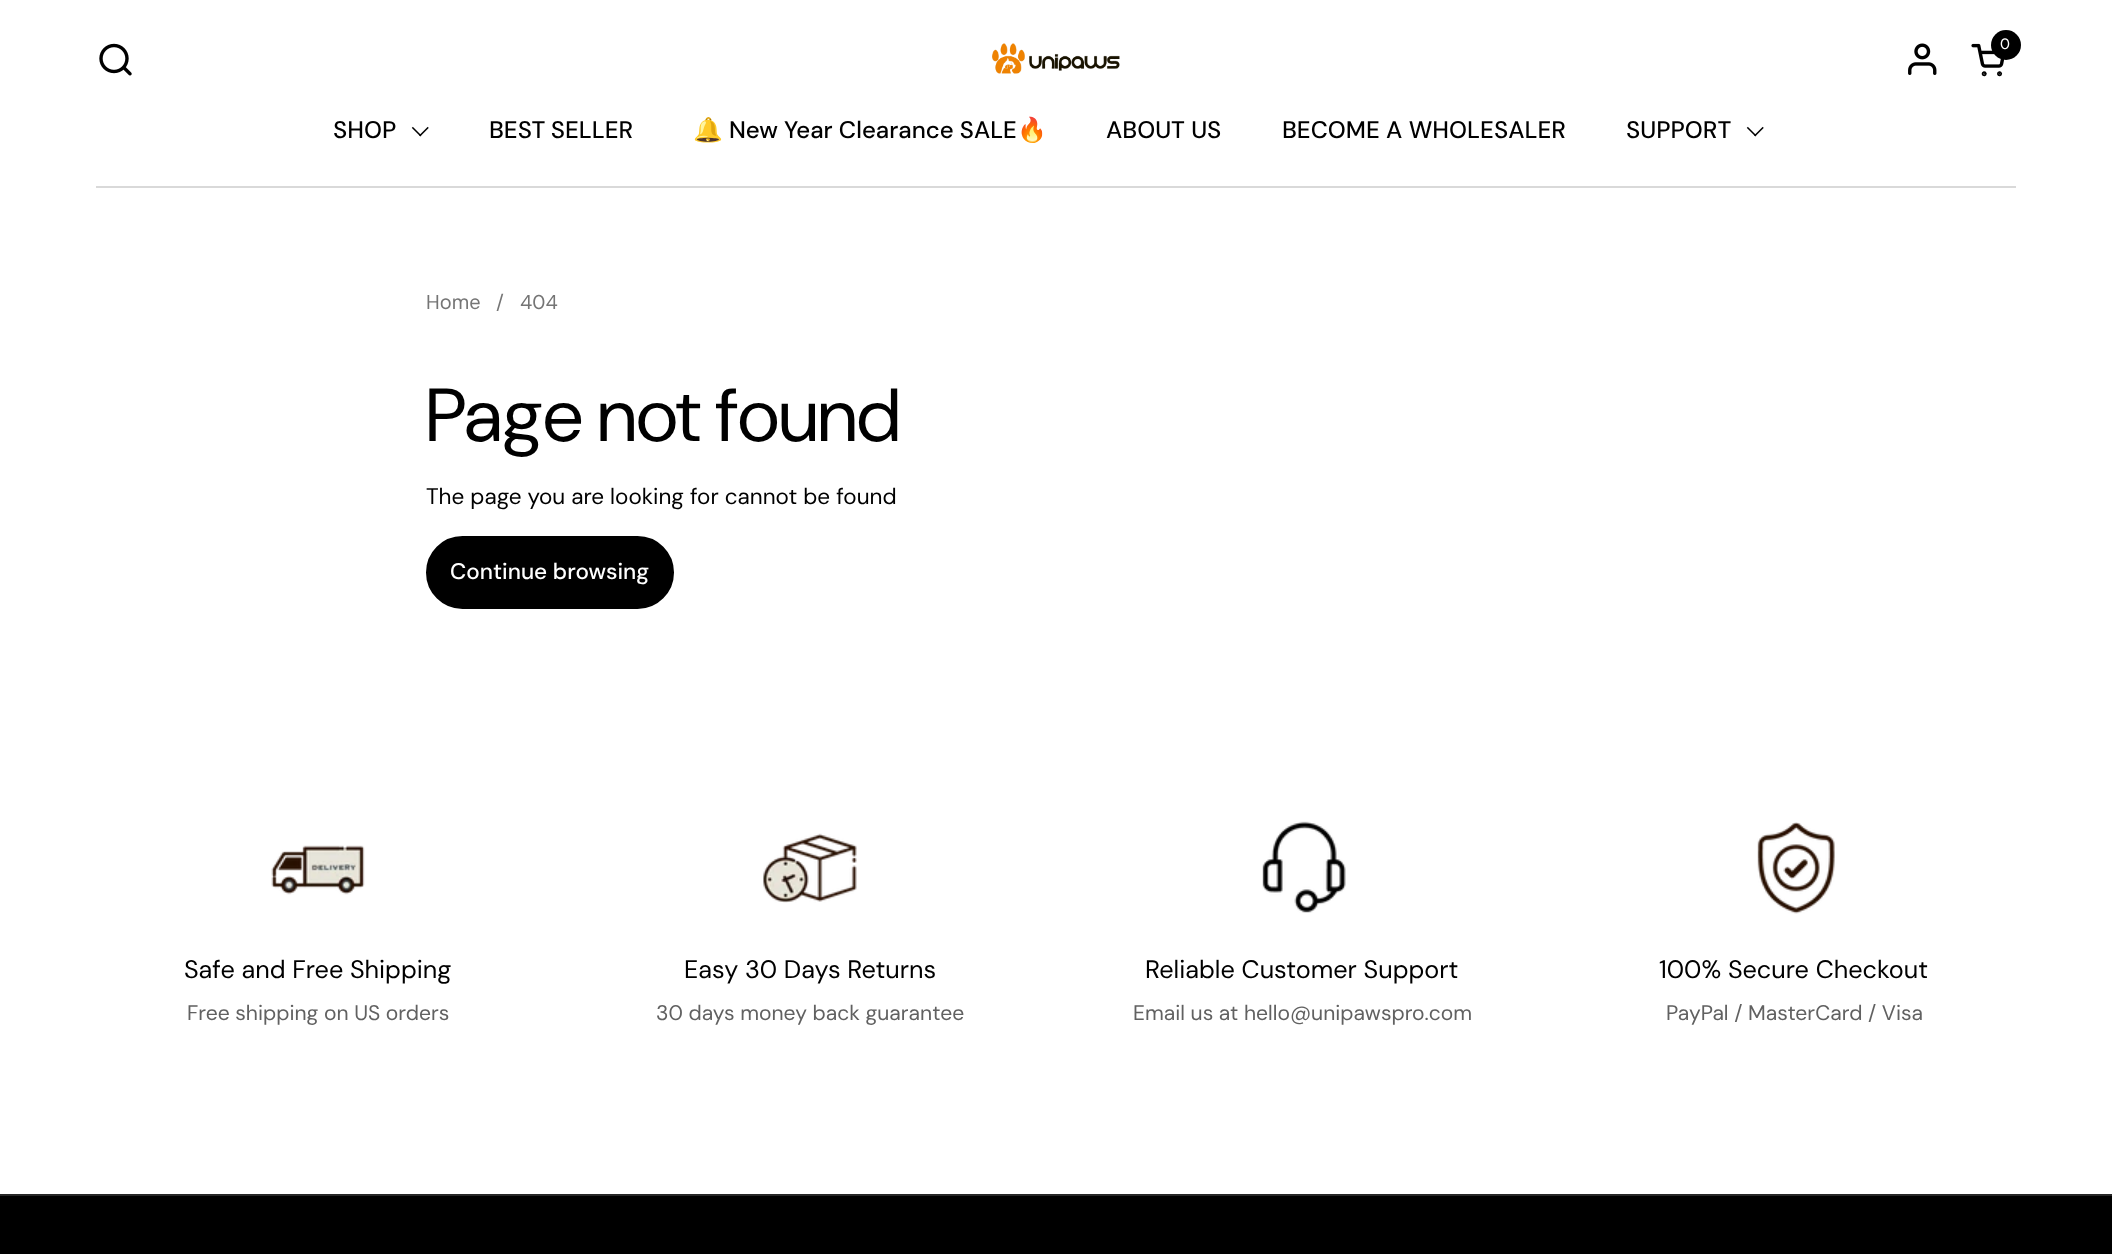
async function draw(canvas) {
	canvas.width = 2112;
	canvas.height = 1254;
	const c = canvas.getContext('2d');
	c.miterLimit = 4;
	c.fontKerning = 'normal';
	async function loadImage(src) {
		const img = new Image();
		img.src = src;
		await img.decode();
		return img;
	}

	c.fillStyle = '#fff';
	c.fillRect(0, 0, 2112, 1254);
	c.drawImage(await loadImage('img1.png'), 99, 43, 33, 33);
	c.drawImage(await loadImage('img2.png'), 992, 43, 128, 31);
	c.drawImage(await loadImage('img3.png'), 1908, 43, 29, 32);
	c.fillStyle = '#000';
	c.beginPath();
	c.arc(2006, 45, 15, 0, 2 * Math.PI);
	c.fill();
	c.font = '15px "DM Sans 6"';
	c.fillStyle = '#fff';
	c.fillText('0', 2000, 49);
	c.drawImage(await loadImage('img4.png'), 1971, 43, 33, 34);
	c.font = '500 24px "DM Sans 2"';
	c.fillStyle = '#000';
	c.fillText('SHOP', 333, 138);
	c.drawImage(await loadImage('img5.png'), 411, 126, 18, 11);
	c.wordSpacing = '-1px';
	c.fillText('BEST SELLER', 489, 138);
	c.wordSpacing = '0px';
	c.font = '24px Noto Color Emoji';
	c.fillText('🔔', 693, 138);
	c.font = '500 24px "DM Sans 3"';
	c.fillText('New Year Clearance SALE', 729, 138);
	c.font = '24px Noto Color Emoji';
	c.fillText('🔥', 1017, 138);
	c.font = '500 24px "DM Sans 2"';
	for (const [text, x, y] of [
		['ABOUT US', 1106, 138],
		['BECOME A WHOLESALER', 1282, 138],
		['SUPPORT', 1626, 138],
	]) {
		c.fillText(text, x, y);
	}
	c.drawImage(await loadImage('img5.png'), 1746, 126, 18, 11);
	c.fillStyle = '#d9d9d9';
	c.fillRect(96, 186, 1920, 2);
	c.font = '20px "DM Sans 3"';
	c.fillStyle = '#757575';
	for (const [text, x, y] of [
		['Home', 426, 309],
		['/', 496, 309],
		['404', 520, 309],
	]) {
		c.fillText(text, x, y);
	}
	c.font = '75px DM Sans';
	c.fillStyle = '#000';
	c.fillText('Page not found', 426, 441);
	c.font = '22.5px "DM Sans 2"';
	c.fillText('The page you are looking for cannot be found', 426, 504);
	c.beginPath();
	c.roundRect(427, 537, 246, 71, 35.5);
	c.fill();
	c.strokeStyle = '#000';
	c.lineWidth = 2;
	c.stroke();
	c.font = '500 22.5px DM Sans';
	c.fillStyle = '#fff';
	c.fillText('Continue browsing', 450, 579);
	c.drawImage(await loadImage('img6.png'), 271, 845, 94, 50);
	c.font = '25.25px "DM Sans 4"';
	c.fillStyle = '#000';
	c.fillText('Safe and Free Shipping', 184, 978);
	c.font = '21.1px "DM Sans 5"';
	c.fillStyle = '#616161';
	c.fillText('Free shipping on US orders', 187, 1020);
	c.drawImage(await loadImage('img7.png'), 763, 833, 94, 70);
	c.font = '25.25px "DM Sans 4"';
	c.fillStyle = '#000';
	c.fillText('Easy 30 Days Returns', 684, 978);
	c.font = '21.1px "DM Sans 5"';
	c.fillStyle = '#616161';
	c.fillText('30 days money back guarantee', 656, 1020);
	c.drawImage(await loadImage('img8.png'), 1262, 821, 84, 92);
	c.font = '25.25px "DM Sans 4"';
	c.fillStyle = '#000';
	c.fillText('Reliable Customer Support', 1145, 978);
	c.font = '21.1px "DM Sans 5"';
	c.fillStyle = '#616161';
	c.fillText('Email us at hello@unipawspro.com', 1133, 1020);
	c.drawImage(await loadImage('img9.png'), 1757, 822, 78, 92);
	c.font = '25.25px "DM Sans 4"';
	c.fillStyle = '#000';
	c.fillText('100% Secure Checkout', 1659, 978);
	c.font = '21.1px "DM Sans 5"';
	c.fillStyle = '#616161';
	c.fillText('PayPal / MasterCard / Visa', 1666, 1020);
	c.fillStyle = '#000';
	c.fillRect(0, 1196, 2112, 58);
	c.fillStyle = '#262626';
	c.fillRect(0, 1194, 2112, 2);
}

draw(document.querySelector('canvas'));
